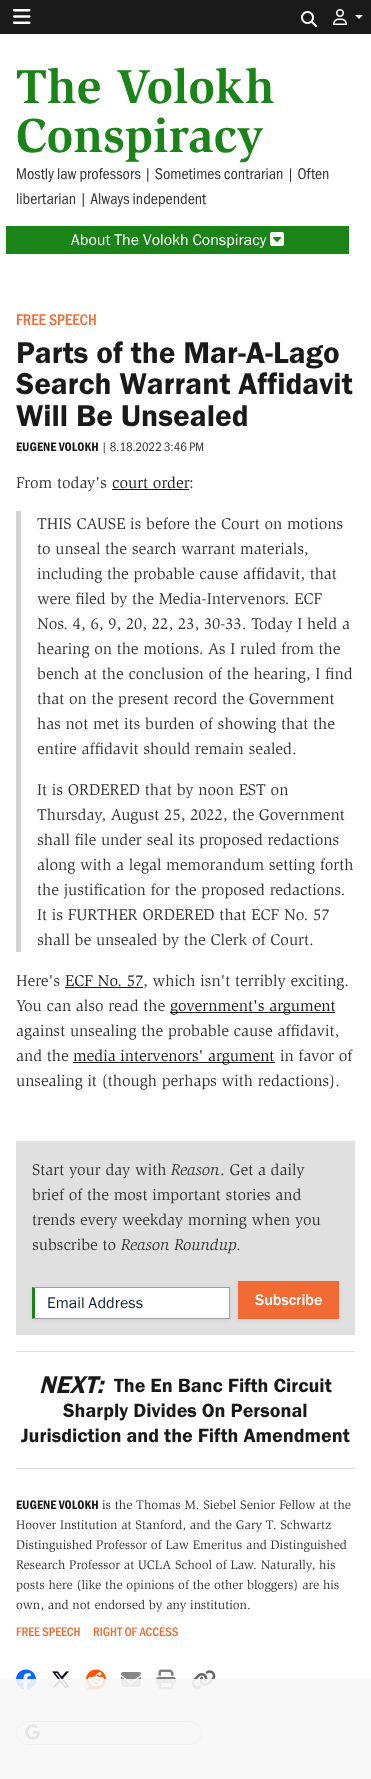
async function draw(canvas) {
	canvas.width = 371;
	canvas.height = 1779;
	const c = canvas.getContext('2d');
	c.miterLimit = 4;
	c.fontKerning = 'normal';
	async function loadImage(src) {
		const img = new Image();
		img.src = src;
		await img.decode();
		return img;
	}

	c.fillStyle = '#fff';
	c.fillRect(0, 0, 371, 1779);
	c.fillStyle = '#1a1a1a';
	c.fillRect(0, 0, 371, 34);
	c.drawImage(await loadImage('img1.png'), 13, 9, 18, 15);
	c.drawImage(await loadImage('img2.png'), 301, 11, 16, 16);
	c.drawImage(await loadImage('img3.png'), 333, 9, 14, 16);
	c.fillStyle = '#fff';
	c.beginPath();
	c.moveTo(355, 15);
	c.lineTo(363, 15);
	c.lineTo(359, 19);
	c.closePath();
	c.fill();
	c.font = 'bold 49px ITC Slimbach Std';
	c.fillStyle = '#1a8419';
	c.fillText('The Volokh', 16, 103);
	c.fillText('Conspiracy', 16, 152);
	c.font = '16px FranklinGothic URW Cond';
	c.fillStyle = '#333';
	c.fillText('Mostly law professors | Sometimes contrarian | Often', 16, 179);
	c.fillText('libertarian | Always independent', 16, 204);
	c.fillStyle = '#1a8419';
	c.fillRect(6, 226, 343, 28);
	c.font = '16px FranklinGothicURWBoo';
	c.fillStyle = '#fff';
	c.fillText('About The Volokh Conspiracy', 71, 245);
	c.drawImage(await loadImage('img4.png'), 270, 232, 14, 14);
	c.font = '500 16px FranklinGothic URW Cond';
	c.fillStyle = '#f36b34';
	c.fillText('FREE SPEECH', 16, 325);
	c.font = '31.25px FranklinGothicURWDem';
	c.fillStyle = '#1a1a1a';
	for (const [text, x, y] of [
		['Parts of the Mar-A-Lago', 16, 363],
		['Search Warrant Affidavit', 16, 394],
		['Will Be Unsealed', 16, 426],
	]) {
		c.fillText(text, x, y);
	}
	c.font = '12.8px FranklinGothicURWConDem';
	c.fillText('EUGENE VOLOKH', 16, 451);
	c.font = '12.8px FranklinGothic URW Cond';
	c.fillStyle = '#333';
	c.fillText('| 8.18.2022 3:46 PM', 101, 451);
	c.font = '16px ITC Slimbach Std';
	c.fillText('From today\'s', 16, 488);
	c.fillStyle = '#1a1a1a';
	c.fillText('court order', 112, 488);
	c.fillRect(112, 489, 77, 1);
	c.fillStyle = '#333';
	c.fillText(':', 189, 488);
	c.fillStyle = '#d4d4d4';
	c.fillRect(16, 511, 5, 441);
	c.fillStyle = '#333';
	for (const [text, x, y] of [
		['THIS CAUSE is before the Court on motions', 37, 529],
		['to unseal the search warrant materials,', 37, 554],
		['including the probable cause affidavit, that', 37, 579],
		['were filed by the Media-Intervenors. ECF', 37, 604],
		['Nos. 4, 6, 9, 20, 22, 23, 30-33. Today I held a', 37, 629],
		['hearing on the motions. As I ruled from the', 37, 654],
		['bench at the conclusion of the hearing, I find', 37, 679],
		['that on the present record the Government', 37, 704],
		['has not met its burden of showing that the', 37, 729],
		['entire affidavit should remain sealed.', 37, 754],
		['It is ORDERED that by noon EST on', 37, 795],
		['Thursday, August 25, 2022, the Government', 37, 820],
		['shall file under seal its proposed redactions', 37, 845],
		['along with a legal memorandum setting forth', 37, 870],
		['the justification for the proposed redactions.', 37, 895],
		['It is FURTHER ORDERED that ECF No. 57', 37, 920],
		['shall be unsealed by the Clerk of Court.', 37, 945],
		['Here\'s', 16, 986],
	]) {
		c.fillText(text, x, y);
	}
	c.fillStyle = '#1a1a1a';
	c.fillText('ECF No. 57', 65, 986);
	c.fillRect(65, 987, 78, 1);
	c.fillStyle = '#333';
	c.fillText(', which isn\'t terribly exciting.', 143, 986);
	c.fillText('You can also read the', 16, 1011);
	c.fillStyle = '#1a1a1a';
	c.fillRect(170, 1012, 165, 1);
	c.fillText('government\'s argument', 170, 1011);
	c.fillStyle = '#333';
	c.fillText('against unsealing the probable cause affidavit,', 16, 1036);
	c.fillText('and the', 16, 1061);
	c.fillStyle = '#1a1a1a';
	c.fillRect(73, 1062, 202, 1);
	c.fillText('media intervenors\' argument', 73, 1061);
	c.fillStyle = '#333';
	c.fillText('in favor of', 280, 1061);
	c.fillText('unsealing it (though perhaps with redactions).', 16, 1086);
	c.fillStyle = '#e0e0e0';
	c.fillRect(16, 1141, 339, 194);
	c.fillStyle = '#333';
	c.fillText('Start your day with', 32, 1175);
	c.font = 'italic 16px ITC Slimbach Std';
	c.fillText('Reason', 171, 1175);
	c.font = '16px ITC Slimbach Std';
	for (const [text, x, y] of [
		['. Get a daily', 220, 1175],
		['brief of the most important stories and', 32, 1200],
		['trends every weekday morning when you', 32, 1225],
		['subscribe to', 32, 1250],
	]) {
		c.fillText(text, x, y);
	}
	c.font = 'italic 16px ITC Slimbach Std';
	c.fillText('Reason Roundup', 121, 1250);
	c.font = '16px ITC Slimbach Std';
	c.fillText('.', 236, 1250);
	c.fillStyle = '#12196114';
	c.filter = 'blur(2px)';
	c.beginPath();
	c.rect(32, 1288, 198, 32);
	c.fill();
	c.filter = 'none';
	c.fillStyle = '#fff';
	c.fillRect(35, 1288, 194, 30);
	c.fillStyle = '#a1a1a1';
	c.beginPath();
	c.moveTo(32, 1287);
	c.lineTo(230, 1287);
	c.lineTo(229, 1288);
	c.lineTo(35, 1288);
	c.closePath();
	c.fill();
	c.fillRect(229, 1287, 1, 32);
	c.beginPath();
	c.moveTo(230, 1319);
	c.lineTo(32, 1319);
	c.lineTo(35, 1318);
	c.lineTo(229, 1318);
	c.closePath();
	c.fill();
	c.fillStyle = '#1a8419';
	c.beginPath();
	c.moveTo(32, 1319);
	c.lineTo(32, 1287);
	c.lineTo(35, 1288);
	c.lineTo(35, 1318);
	c.closePath();
	c.fill();
	c.font = '16px FranklinGothicURWBoo';
	c.fillStyle = '#112337';
	c.fillText('Email Address', 47, 1308);
	c.fillStyle = '#12196114';
	c.filter = 'blur(2px)';
	c.beginPath();
	c.rect(238, 1282, 101, 38);
	c.fill();
	c.filter = 'none';
	c.fillStyle = '#f36b34';
	c.fillRect(238, 1281, 101, 38);
	c.font = '16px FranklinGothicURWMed';
	c.fillStyle = '#fff';
	c.fillText('Subscribe', 255, 1305);
	c.fillStyle = '#e0e0e0';
	c.fillRect(16, 1351, 339, 1);
	c.fillRect(16, 1468, 339, 1);
	c.font = 'italic 25px FranklinGothicURWDem';
	c.fillStyle = '#1a1a1a';
	c.fillText('NEXT:', 39, 1393);
	c.font = '20px FranklinGothicURWDem';
	for (const [text, x, y] of [
		['The En Banc Fifth Circuit', 114, 1392],
		['Sharply Divides On Personal', 63, 1417],
		['Jurisdiction and the Fifth Amendment', 21, 1442],
	]) {
		c.fillText(text, x, y);
	}
	c.font = '12.8px FranklinGothicURWConDem';
	c.fillText('EUGENE VOLOKH', 16, 1509);
	c.font = '12.8px ITC Slimbach Std';
	c.fillStyle = '#333';
	for (const [text, x, y] of [
		['is the Thomas M. Siebel Senior Fellow at the', 102, 1509],
		['Hoover Institution at Stanford, and the Gary T. Schwartz', 16, 1529],
		['Distinguished Professor of Law Emeritus and Distinguished', 16, 1549],
		['Research Professor at UCLA School of Law. Naturally, his', 16, 1569],
		['posts here (like the opinions of the other bloggers) are his', 16, 1589],
		['own, and not endorsed by any institution.', 16, 1609],
	]) {
		c.fillText(text, x, y);
	}
	c.font = '500 12.8px FranklinGothic URW Cond';
	c.fillStyle = '#f36b34';
	c.fillText('FREE SPEECH', 16, 1636);
	c.fillText('RIGHT OF ACCESS', 93, 1636);
	c.drawImage(await loadImage('img5.png'), 16, 1669, 20, 21);
	c.drawImage(await loadImage('img6.png'), 52, 1671, 18, 17);
	c.drawImage(await loadImage('img7.png'), 86, 1669, 20, 21);
	c.drawImage(await loadImage('img8.png'), 121, 1672, 20, 15);
	c.drawImage(await loadImage('img9.png'), 156, 1669, 20, 21);
	c.drawImage(await loadImage('img10.png'), 191, 1670, 25, 19);
	c.beginPath();
	c.roundRect(16.5, 1721.5, 185, 23, 11.5);
	c.strokeStyle = '#bababa';
	c.stroke();
	c.drawImage(await loadImage('img11.png'), 25, 1724, 16, 16);
	c.fillStyle = '#f7f7f7e6';
	c.fillRect(0, 1679, 371, 100);
}

draw(document.querySelector('canvas'));
